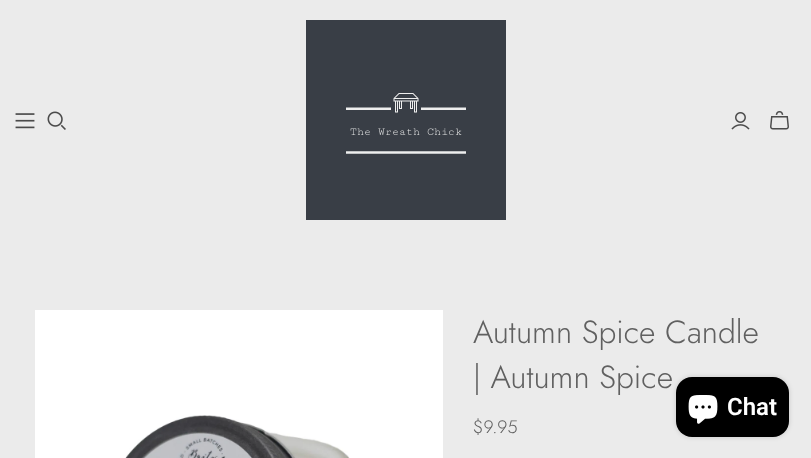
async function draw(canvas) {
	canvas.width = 811;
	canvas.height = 458;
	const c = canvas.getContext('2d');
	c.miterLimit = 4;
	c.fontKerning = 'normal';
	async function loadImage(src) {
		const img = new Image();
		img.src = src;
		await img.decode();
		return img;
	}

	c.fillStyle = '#ebebeb';
	c.fillRect(0, 0, 811, 458);
	c.drawImage(await loadImage('img1.png'), 306, 20, 200, 200);
	c.drawImage(await loadImage('img2.png'), 15, 113, 20, 16);
	c.drawImage(await loadImage('img3.png'), 47, 111, 19, 19);
	c.drawImage(await loadImage('img4.png'), 731, 112, 19, 18);
	c.drawImage(await loadImage('img5.png'), 770, 111, 19, 19);
	c.drawImage(await loadImage('img6.png'), 35, 310, 408, 148);
	c.font = '300 32px Jost';
	c.fillStyle = '#606060';
	c.fillText('Autumn Spice Candle', 473, 343);
	c.fillText('| Autumn Spice', 473, 388);
	c.font = '300 18px Jost';
	c.fillText('$9.95', 473, 433);
	c.fillStyle = '#00000026';
	c.filter = 'blur(2.5px)';
	c.beginPath();
	c.roundRect(676, 377, 113, 60, 16);
	c.fill();
	c.filter = 'none';
	c.fillStyle = '#000';
	c.beginPath();
	c.roundRect(676, 377, 113, 60, 16);
	c.fill();
	c.drawImage(await loadImage('img7.png'), 688, 395, 30, 29);
	c.font = '600 24px Roboto';
	c.fillStyle = '#fff';
	c.fillText('Chat', 727, 415);
}

draw(document.querySelector('canvas'));
